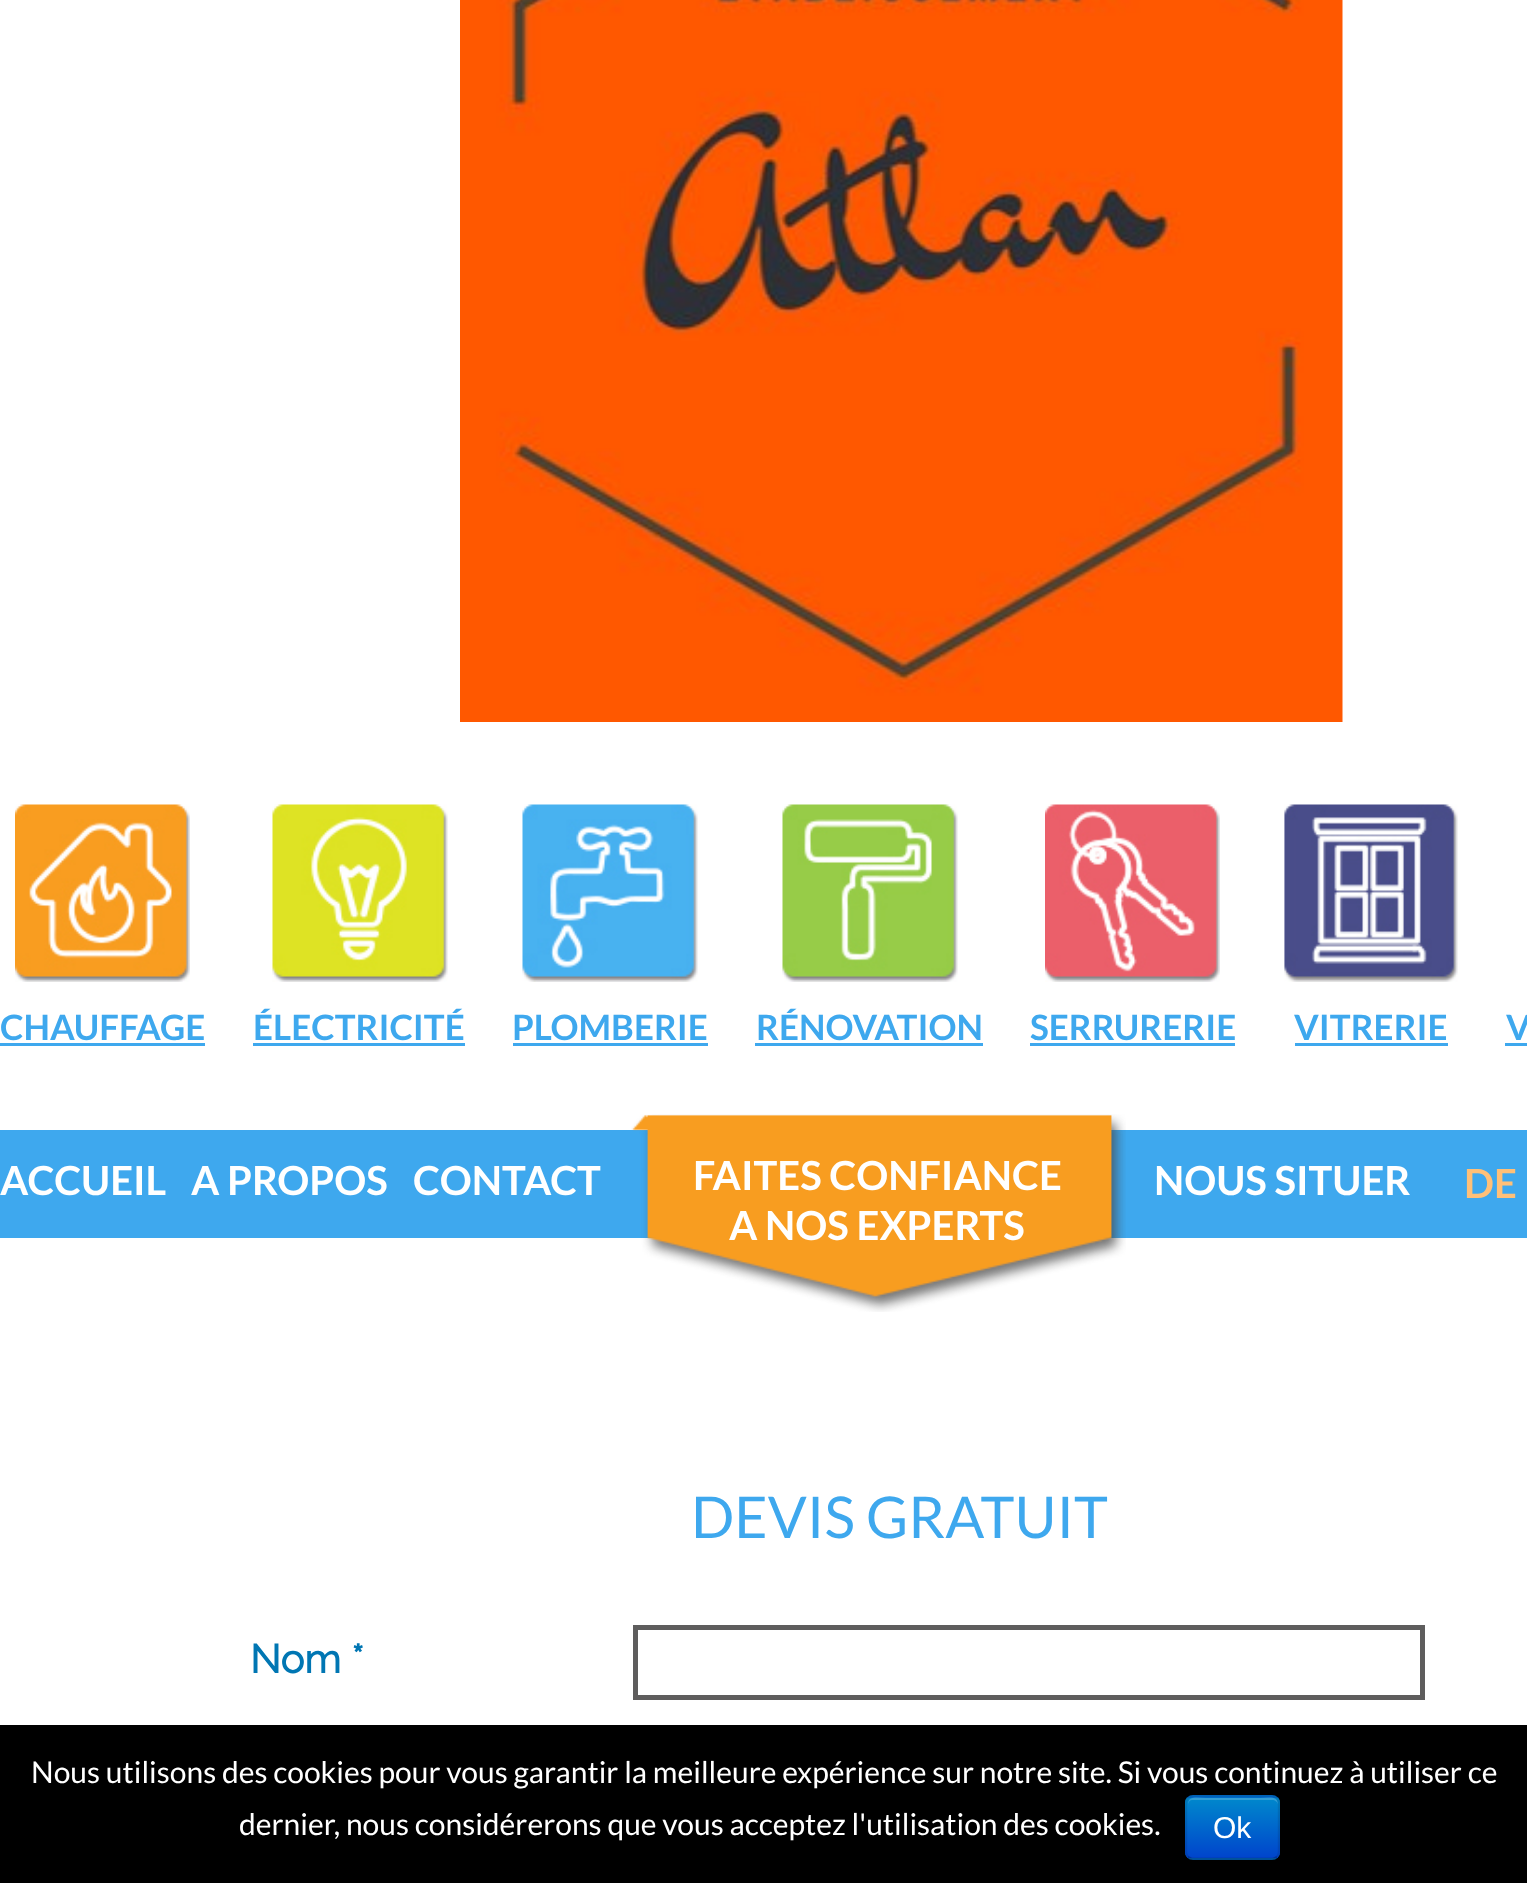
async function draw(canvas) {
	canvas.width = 1527;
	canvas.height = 1883;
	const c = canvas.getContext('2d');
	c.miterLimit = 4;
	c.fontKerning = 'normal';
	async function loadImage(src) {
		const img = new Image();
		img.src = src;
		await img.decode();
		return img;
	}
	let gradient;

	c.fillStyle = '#fff';
	c.fillRect(0, 0, 1527, 1883);
	c.drawImage(await loadImage('img1.png'), 460, 0, 883, 722);
	c.drawImage(await loadImage('img2.png'), 15, 804, 175, 178);
	c.font = 'bold 35px Lato';
	c.fillStyle = '#3ea8ee';
	c.fillText('CHAUFFAGE', 0, 1040);
	c.fillRect(0, 1043, 205, 3);
	c.drawImage(await loadImage('img3.png'), 272, 804, 176, 178);
	c.fillText('ÉLECTRICITÉ', 253, 1040);
	c.fillRect(253, 1043, 212, 3);
	c.drawImage(await loadImage('img4.png'), 522, 804, 176, 178);
	c.fillText('PLOMBERIE', 512, 1040);
	c.fillRect(513, 1043, 195, 3);
	c.drawImage(await loadImage('img5.png'), 782, 804, 176, 178);
	c.fillText('RÉNOVATION', 756, 1040);
	c.fillRect(755, 1043, 228, 3);
	c.drawImage(await loadImage('img6.png'), 1045, 804, 175, 178);
	c.fillText('SERRURERIE', 1030, 1040);
	c.fillRect(1030, 1043, 205, 3);
	c.drawImage(await loadImage('img7.png'), 1284, 804, 174, 178);
	c.fillText('VITRERIE', 1294, 1040);
	c.fillRect(1295, 1043, 153, 3);
	c.fillText('V', 1506, 1040);
	c.fillRect(1505, 1043, 22, 3);
	c.fillRect(0, 1130, 1527, 108);
	c.font = 'bold 40px Lato';
	c.fillStyle = '#fff';
	for (const [text, x, y] of [
		['ACCUEIL', 0, 1195],
		['A PROPOS', 191, 1195],
		['CONTACT', 413, 1195],
	]) {
		c.fillText(text, x, y);
	}
	c.drawImage(await loadImage('img8.png'), 631, 1114, 495, 198);
	for (const [text, x, y] of [
		['FAITES CONFIANCE', 693, 1190],
		['A NOS EXPERTS', 729, 1240],
		['NOUS SITUER', 1154, 1195],
	]) {
		c.fillText(text, x, y);
	}
	c.fillStyle = '#ffc078';
	c.fillText('DE', 1464, 1198);
	c.font = '57.5px Lato';
	c.fillStyle = '#3ea8ee';
	c.fillText('DEVIS GRATUIT', 691, 1538);
	c.font = 'bold 40px Raleway';
	c.fillStyle = '#0076b3';
	c.fillText('Nom *', 250, 1673);
	c.strokeStyle = '#5e5d5d';
	c.lineWidth = 5;
	c.strokeRect(635.5, 1627.5, 787, 70);
	c.fillStyle = '#000';
	c.fillRect(0, 1725, 1527, 158);
	c.font = '30px Lato';
	c.fillStyle = '#fff';
	c.fillText('Nous utilisons des cookies pour vous garantir la meilleure expérience sur notre site. Si vous continuez à utiliser ce', 31, 1783);
	c.fillText('dernier, nous considérerons que vous acceptez l\'utilisation des cookies.', 239, 1835);
	c.fillStyle = '#006dcc';
	c.beginPath();
	c.roundRect(1185, 1795, 95, 65, 8);
	c.fill();
	c.save();
	c.beginPath();
	c.roundRect(1185, 1795, 95, 65, 8);
	c.clip();
	gradient = c.createLinearGradient(1233, 1798, 1233, 1858);
	gradient.addColorStop(0, '#08c');
	gradient.addColorStop(1, '#04c');
	c.fillStyle = gradient;
	c.fillRect(1185, 1798, 95, 60);
	c.restore();
	c.fillStyle = '#ffffff33';
	c.beginPath();
	c.moveTo(1192, 1800);
	c.lineTo(1272, 1800);
	c.bezierCurveTo(1275, 1800, 1278, 1802, 1278, 1805);
	c.bezierCurveTo(1278, 1795, 1268, 1798, 1260, 1798);
	c.lineTo(1206, 1798);
	c.bezierCurveTo(1198, 1798, 1188, 1795, 1188, 1805);
	c.bezierCurveTo(1188, 1802, 1190, 1800, 1192, 1800);
	c.closePath();
	c.fill();
	c.beginPath();
	c.moveTo(1277, 1857);
	c.bezierCurveTo(1275.5, 1858, 1274, 1859, 1272.5, 1859);
	c.lineTo(1192.5, 1859);
	c.bezierCurveTo(1191, 1859, 1189.5, 1858, 1188, 1857);
	c.strokeStyle = '#00000040';
	c.lineWidth = 2.5;
	c.stroke();
	c.beginPath();
	c.moveTo(1188, 1857);
	c.bezierCurveTo(1187, 1855.5, 1186, 1854, 1186, 1852.5);
	c.lineTo(1186, 1802.5);
	c.bezierCurveTo(1186, 1801, 1187, 1799.5, 1188, 1798);
	c.bezierCurveTo(1189.5, 1797, 1191, 1796, 1192.5, 1796);
	c.lineTo(1272.5, 1796);
	c.bezierCurveTo(1274, 1796, 1275.5, 1797, 1277, 1798);
	c.bezierCurveTo(1278, 1799.5, 1279, 1801, 1279, 1802.5);
	c.lineTo(1279, 1852.5);
	c.bezierCurveTo(1279, 1854, 1278, 1855.5, 1277, 1857);
	c.strokeStyle = '#0000001a';
	c.stroke();
	c.font = '30px Liberation Sans';
	c.fillStyle = '#fff';
	c.fillText('Ok', 1213, 1838);
}

draw(document.querySelector('canvas'));
